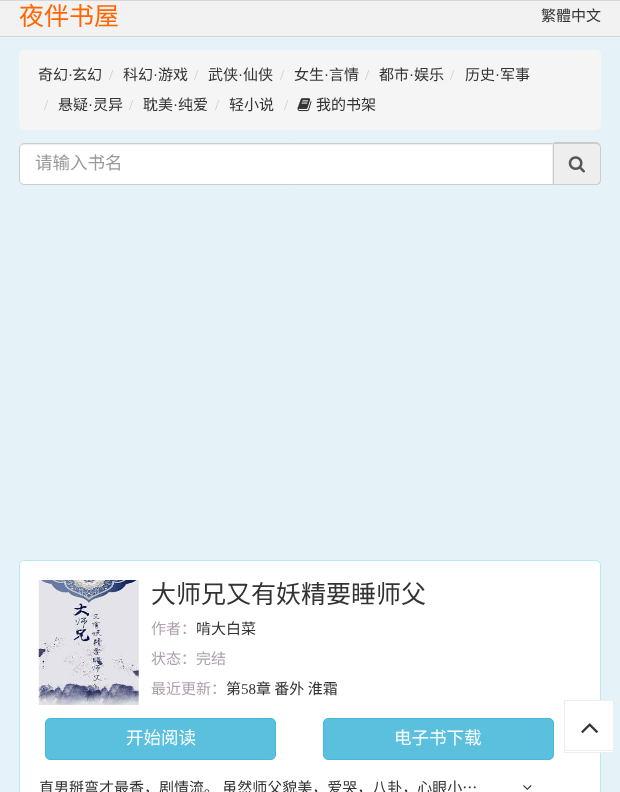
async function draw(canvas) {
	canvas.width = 620;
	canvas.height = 792;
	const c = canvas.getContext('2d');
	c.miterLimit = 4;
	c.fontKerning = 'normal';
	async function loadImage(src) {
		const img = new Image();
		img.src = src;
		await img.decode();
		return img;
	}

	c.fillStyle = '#e5f2f7';
	c.fillRect(0, 0, 620, 792);
	for (const [x, y, w, h, color] of [
		[0, 1, 620, 37, '#f2f2f2'],
		[0, 0, 620, 1, '#d6d6d6'],
		[0, 36, 620, 1, '#d6d6d6'],
	]) {
		c.fillStyle = color;
		c.fillRect(x, y, w, h);
	}
	c.font = '25px Noto Sans CJK SC';
	c.fillStyle = '#f60';
	c.fillText('夜伴书屋', 19, 25);
	c.font = '15px Noto Sans CJK SC';
	c.fillStyle = '#333';
	c.fillText('繁體中文', 541, 21);
	c.fillStyle = '#f5f5f5';
	c.beginPath();
	c.roundRect(19, 50, 582, 80, 5);
	c.fill();
	c.fillStyle = '#333';
	c.fillText('奇幻', 38, 80);
	c.font = '15px Liberation Serif';
	c.fillText('·', 68, 80);
	c.font = '15px Noto Sans CJK SC';
	c.fillText('玄幻', 72, 80);
	c.font = '15px Liberation Serif';
	c.fillStyle = '#ccc';
	c.fillText('/', 109, 80);
	c.font = '15px Noto Sans CJK SC';
	c.fillStyle = '#333';
	c.fillText('科幻', 123, 80);
	c.font = '15px Liberation Serif';
	c.fillText('·', 153, 80);
	c.font = '15px Noto Sans CJK SC';
	c.fillText('游戏', 158, 80);
	c.font = '15px Liberation Serif';
	c.fillStyle = '#ccc';
	c.fillText('/', 194, 80);
	c.font = '15px Noto Sans CJK SC';
	c.fillStyle = '#333';
	c.fillText('武侠', 208, 80);
	c.font = '15px Liberation Serif';
	c.fillText('·', 238, 80);
	c.font = '15px Noto Sans CJK SC';
	c.fillText('仙侠', 243, 80);
	c.font = '15px Liberation Serif';
	c.fillStyle = '#ccc';
	c.fillText('/', 280, 80);
	c.font = '15px Noto Sans CJK SC';
	c.fillStyle = '#333';
	c.fillText('女生', 294, 80);
	c.font = '15px Liberation Serif';
	c.fillText('·', 324, 80);
	c.font = '15px Noto Sans CJK SC';
	c.fillText('言情', 329, 80);
	c.font = '15px Liberation Serif';
	c.fillStyle = '#ccc';
	c.fillText('/', 365, 80);
	c.font = '15px Noto Sans CJK SC';
	c.fillStyle = '#333';
	c.fillText('都市', 379, 80);
	c.font = '15px Liberation Serif';
	c.fillText('·', 409, 80);
	c.font = '15px Noto Sans CJK SC';
	c.fillText('娱乐', 414, 80);
	c.font = '15px Liberation Serif';
	c.fillStyle = '#ccc';
	c.fillText('/', 450, 80);
	c.font = '15px Noto Sans CJK SC';
	c.fillStyle = '#333';
	c.fillText('历史', 465, 80);
	c.font = '15px Liberation Serif';
	c.fillText('·', 495, 80);
	c.font = '15px Noto Sans CJK SC';
	c.fillText('军事', 500, 80);
	c.font = '15px Liberation Serif';
	c.fillStyle = '#ccc';
	c.fillText('/', 44, 110);
	c.font = '15px Noto Sans CJK SC';
	c.fillStyle = '#333';
	c.fillText('悬疑', 58, 110);
	c.font = '15px Liberation Serif';
	c.fillText('·', 88, 110);
	c.font = '15px Noto Sans CJK SC';
	c.fillText('灵异', 93, 110);
	c.font = '15px Liberation Serif';
	c.fillStyle = '#ccc';
	c.fillText('/', 129, 110);
	c.font = '15px Noto Sans CJK SC';
	c.fillStyle = '#333';
	c.fillText('耽美', 143, 110);
	c.font = '15px Liberation Serif';
	c.fillText('·', 173, 110);
	c.font = '15px Noto Sans CJK SC';
	c.fillText('纯爱', 178, 110);
	c.font = '15px Liberation Serif';
	c.fillStyle = '#ccc';
	c.fillText('/', 215, 110);
	c.font = '15px Noto Sans CJK SC';
	c.fillStyle = '#333';
	c.fillText('轻小说', 229, 110);
	c.font = '15px Liberation Serif';
	c.fillStyle = '#ccc';
	c.fillText('/', 284, 110);
	c.drawImage(await loadImage('img1.png'), 297, 98, 15, 14);
	c.font = '15px Noto Sans CJK SC';
	c.fillStyle = '#333';
	c.fillText('我的书架', 316, 110);
	c.fillStyle = '#fff';
	c.beginPath();
	c.roundRect(19, 143, 535, 42, [5, 0, 0, 5]);
	c.fill();
	c.fillStyle = '#ececec';
	c.beginPath();
	c.moveTo(24, 145);
	c.lineTo(552, 145);
	c.lineTo(552, 184);
	c.lineTo(553, 184);
	c.lineTo(553, 144);
	c.lineTo(24, 144);
	c.bezierCurveTo(21, 144, 20, 146, 20, 149);
	c.bezierCurveTo(20, 147, 22, 145, 24, 145);
	c.closePath();
	c.fill();
	c.beginPath();
	c.roundRect(19.5, 143.5, 534, 41, [4.5, 0, 0, 4.5]);
	c.strokeStyle = '#ccc';
	c.stroke();
	c.font = '17.5px Noto Sans CJK SC';
	c.fillStyle = '#999';
	c.fillText('请输入书名', 35, 169);
	c.fillStyle = '#eee';
	c.beginPath();
	c.roundRect(554, 143, 47, 42, [0, 5, 5, 0]);
	c.fill();
	c.fillStyle = '#ccc';
	c.beginPath();
	c.moveTo(554, 142);
	c.lineTo(596, 142);
	c.bezierCurveTo(599, 142, 601, 145, 601, 148);
	c.lineTo(601, 180);
	c.bezierCurveTo(601, 183, 599, 185, 596, 185);
	c.lineTo(554, 185);
	c.closePath();
	c.moveTo(554, 144);
	c.lineTo(596, 144);
	c.bezierCurveTo(598, 144, 600, 145, 600, 148);
	c.lineTo(600, 180);
	c.bezierCurveTo(600, 182, 598, 184, 596, 184);
	c.lineTo(554, 184);
	c.closePath();
	c.fill('evenodd');
	c.drawImage(await loadImage('img2.png'), 568, 156, 17, 17);
	c.fillStyle = '#fff';
	c.beginPath();
	c.roundRect(19.5, 560.5, 581, 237, 4.5);
	c.fill();
	c.strokeStyle = '#bce8f1';
	c.stroke();
	c.drawImage(await loadImage('img3.png'), 38, 580, 101, 125);
	c.font = '25px Noto Sans CJK SC';
	c.fillStyle = '#333';
	c.fillText('大师兄又有妖精要睡师父', 151, 603);
	c.font = '15px Noto Sans CJK SC';
	c.fillStyle = '#afa0af';
	c.fillText('作者：', 151, 634);
	c.fillStyle = '#333';
	c.fillText('啃大白菜', 196, 634);
	c.fillStyle = '#afa0af';
	c.fillText('状态：完结', 151, 664);
	c.fillText('最近更新：', 151, 694);
	c.fillStyle = '#333';
	c.fillText('第', 226, 694);
	c.font = '15px Liberation Serif';
	c.fillText('58', 241, 694);
	c.font = '15px Noto Sans CJK SC';
	c.fillText('章 番外 淮霜', 256, 694);
	c.fillStyle = '#5bc0de';
	c.beginPath();
	c.roundRect(45.5, 718.5, 230, 41, 4.5);
	c.fill();
	c.strokeStyle = '#46b8da';
	c.stroke();
	c.font = '17.5px Noto Sans CJK SC';
	c.fillStyle = '#fff';
	c.fillText('开始阅读', 126, 744);
	c.fillStyle = '#5bc0de';
	c.beginPath();
	c.roundRect(323.5, 718.5, 230, 41, 4.5);
	c.fill();
	c.stroke();
	c.fillStyle = '#fff';
	c.fillText('电子书下载', 394, 744);
	c.font = '15px Noto Sans CJK SC';
	c.fillStyle = '#333';
	c.fillText('直男掰弯才最香，剧情流。 虽然师父貌美，爱哭，八卦，心眼小…', 39, 793);
	c.drawImage(await loadImage('img4.png'), 523, 785, 9, 5);
	c.fillStyle = '#fff';
	c.fillRect(600, 701, 13, 51);
	c.strokeStyle = '#eee';
	c.strokeRect(564.5, 700.5, 49, 52);
	c.fillStyle = '#eee';
	c.fillRect(565, 750, 50, 1);
	c.drawImage(await loadImage('img5.png'), 581, 723, 17, 10);
}

draw(document.querySelector('canvas'));
